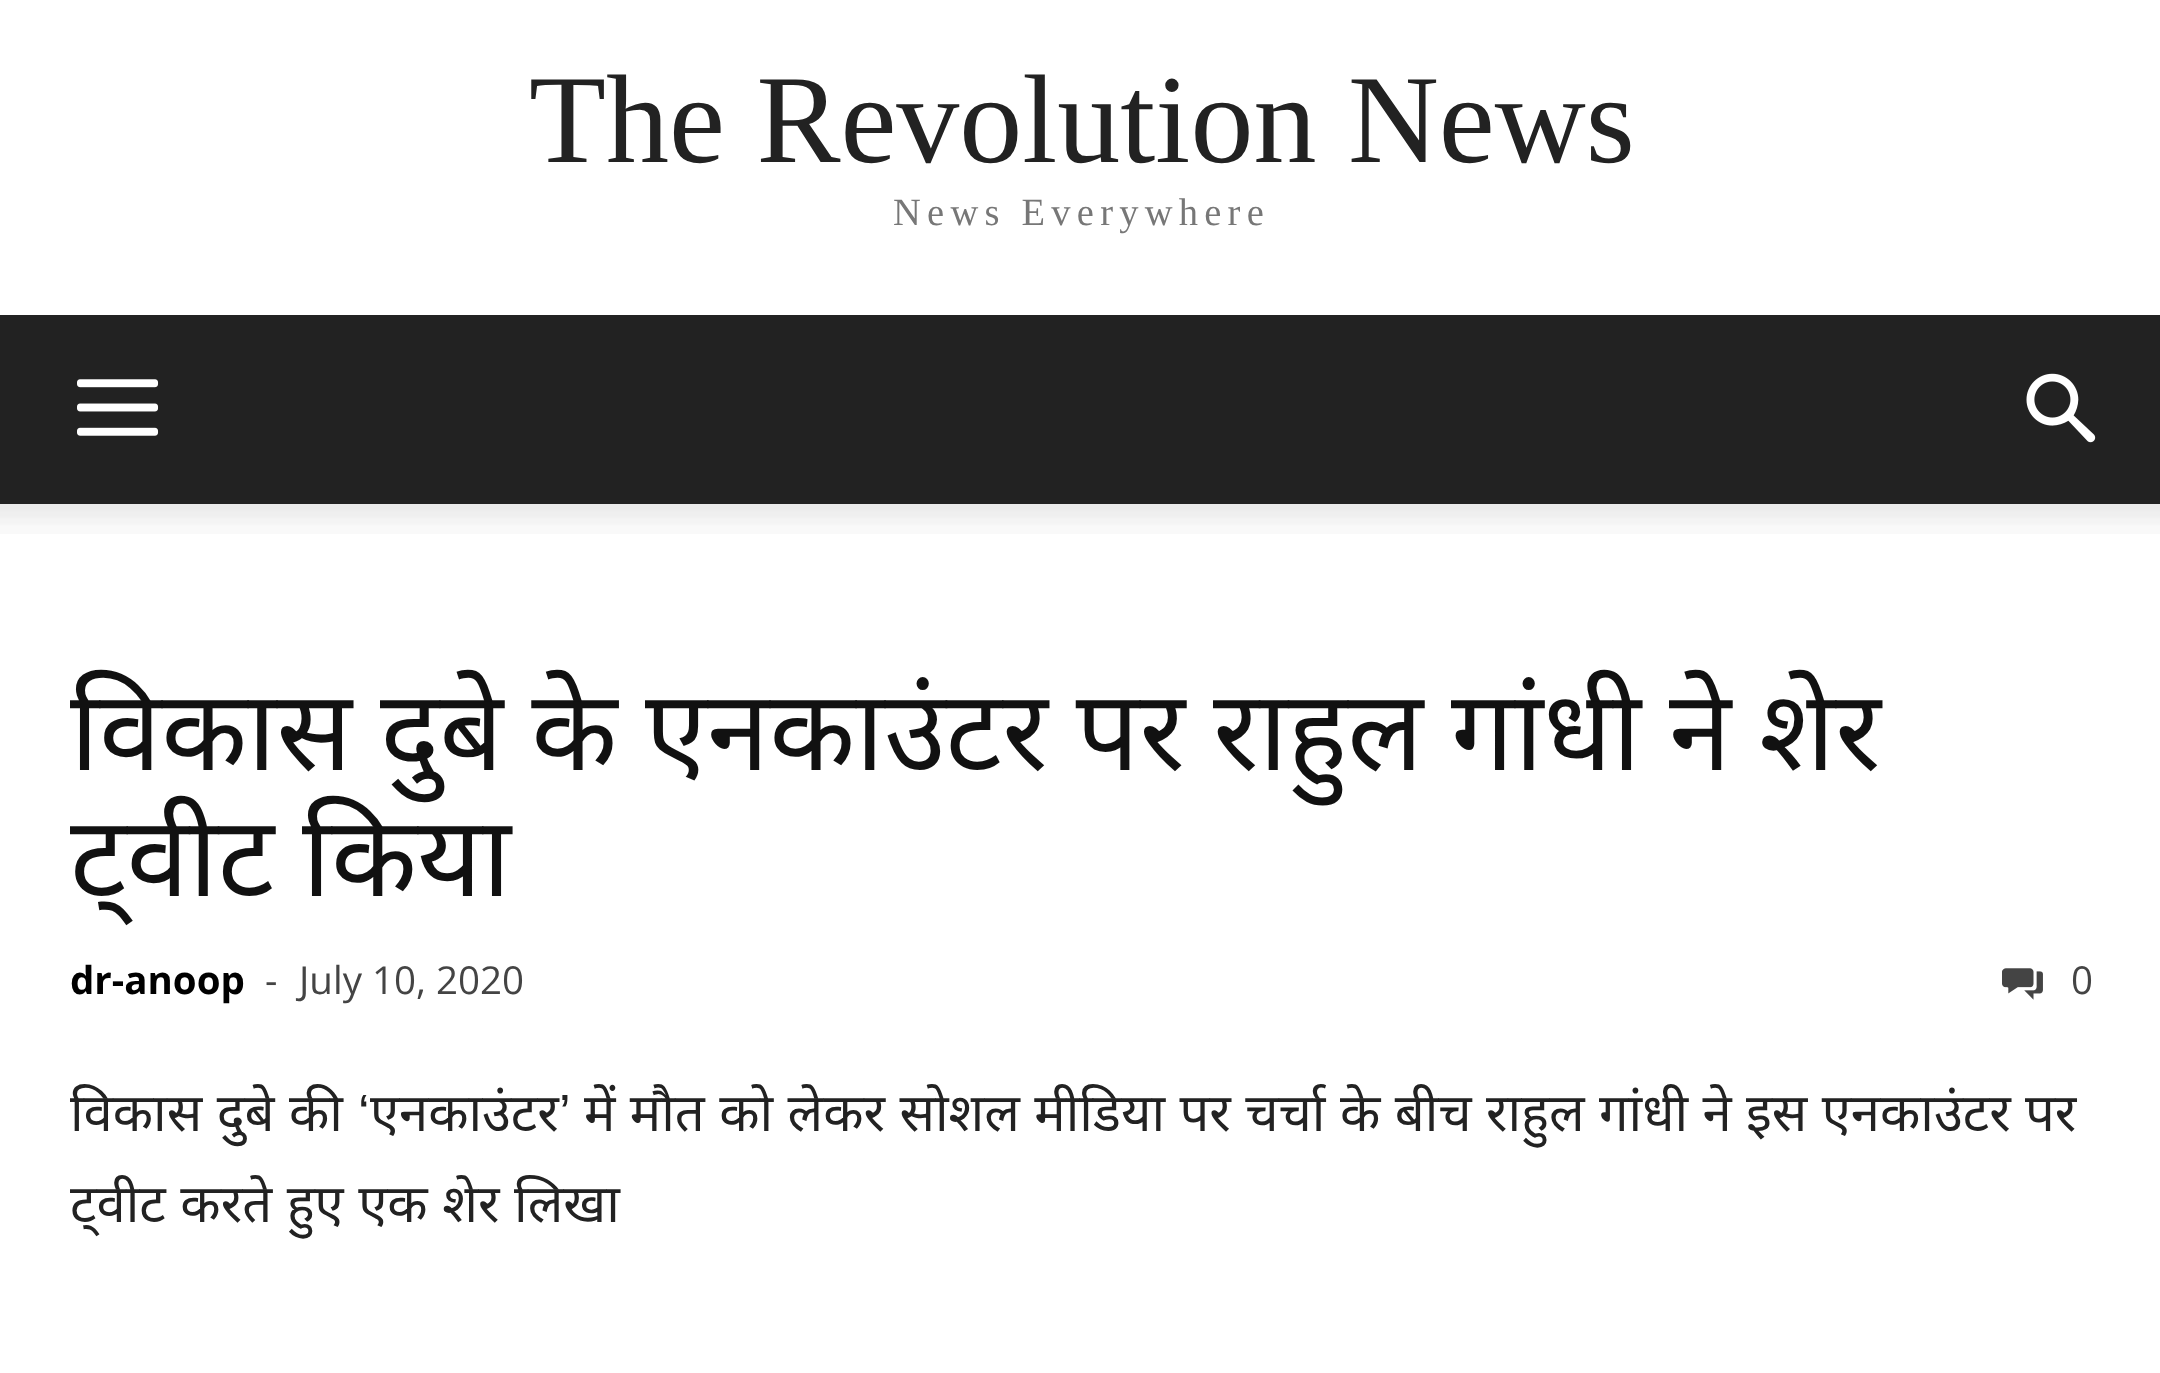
async function draw(canvas) {
	canvas.width = 2160;
	canvas.height = 1373;
	const c = canvas.getContext('2d');
	c.miterLimit = 4;
	c.fontKerning = 'normal';
	async function loadImage(src) {
		const img = new Image();
		img.src = src;
		await img.decode();
		return img;
	}

	c.fillStyle = '#fff';
	c.fillRect(0, 0, 2160, 1373);
	c.font = '126px Liberation Serif';
	c.fillStyle = '#222';
	c.fillText('The Revolution News', 529, 162);
	c.letterSpacing = '6.25px';
	c.font = '38.5px Liberation Serif';
	c.fillStyle = '#777';
	c.fillText('News Everywhere', 893, 225);
	c.fillStyle = '#222';
	c.fillRect(0, 315, 2160, 189);
	c.drawImage(await loadImage('img1.png'), 77, 379, 82, 57);
	c.drawImage(await loadImage('img2.png'), 2026, 373, 70, 70);
	c.drawImage(await loadImage('img3.png'), 0, 504, 2160, 30);
	c.letterSpacing = '0px';
	c.wordSpacing = '-1.25px';
	c.font = '112px Noto Sans';
	c.fillStyle = '#111';
	c.fillText('विकास दुबे के एनकाउंटर पर राहुल गांधी ने शेर', 70, 770);
	c.fillText('ट्वीट किया', 70, 896);
	c.wordSpacing = '0px';
	c.font = 'bold 38.5px Open Sans';
	c.fillStyle = '#000';
	c.fillText('dr-anoop', 70, 994);
	c.font = '38.5px Open Sans';
	c.fillStyle = '#444';
	c.fillText('-', 265, 994);
	c.fillText('July 10, 2020', 299, 994);
	c.drawImage(await loadImage('img4.png'), 2002, 968, 41, 32);
	c.fillText('0', 2071, 994);
	c.wordSpacing = '0.8px';
	c.font = '52.5px Noto Sans';
	c.fillStyle = '#222';
	c.fillText('विकास दुबे की', 70, 1131);
	c.wordSpacing = '0px';
	c.font = '52.5px Liberation Sans';
	c.fillText('‘', 358, 1131);
	c.font = '52.5px Noto Sans';
	c.fillText('एनकाउंटर', 370, 1131);
	c.font = '52.5px Liberation Sans';
	c.fillText('’', 559, 1131);
	c.wordSpacing = '0.8px';
	c.font = '52.5px Noto Sans';
	c.fillText('में मौत को लेकर सोशल मीडिया पर चर्चा के बीच राहुल गांधी ने इस एनकाउंटर पर', 584, 1131);
	c.wordSpacing = '1px';
	c.fillText('ट्वीट करते हुए एक शेर लिखा', 70, 1222);
}

draw(document.querySelector('canvas'));
